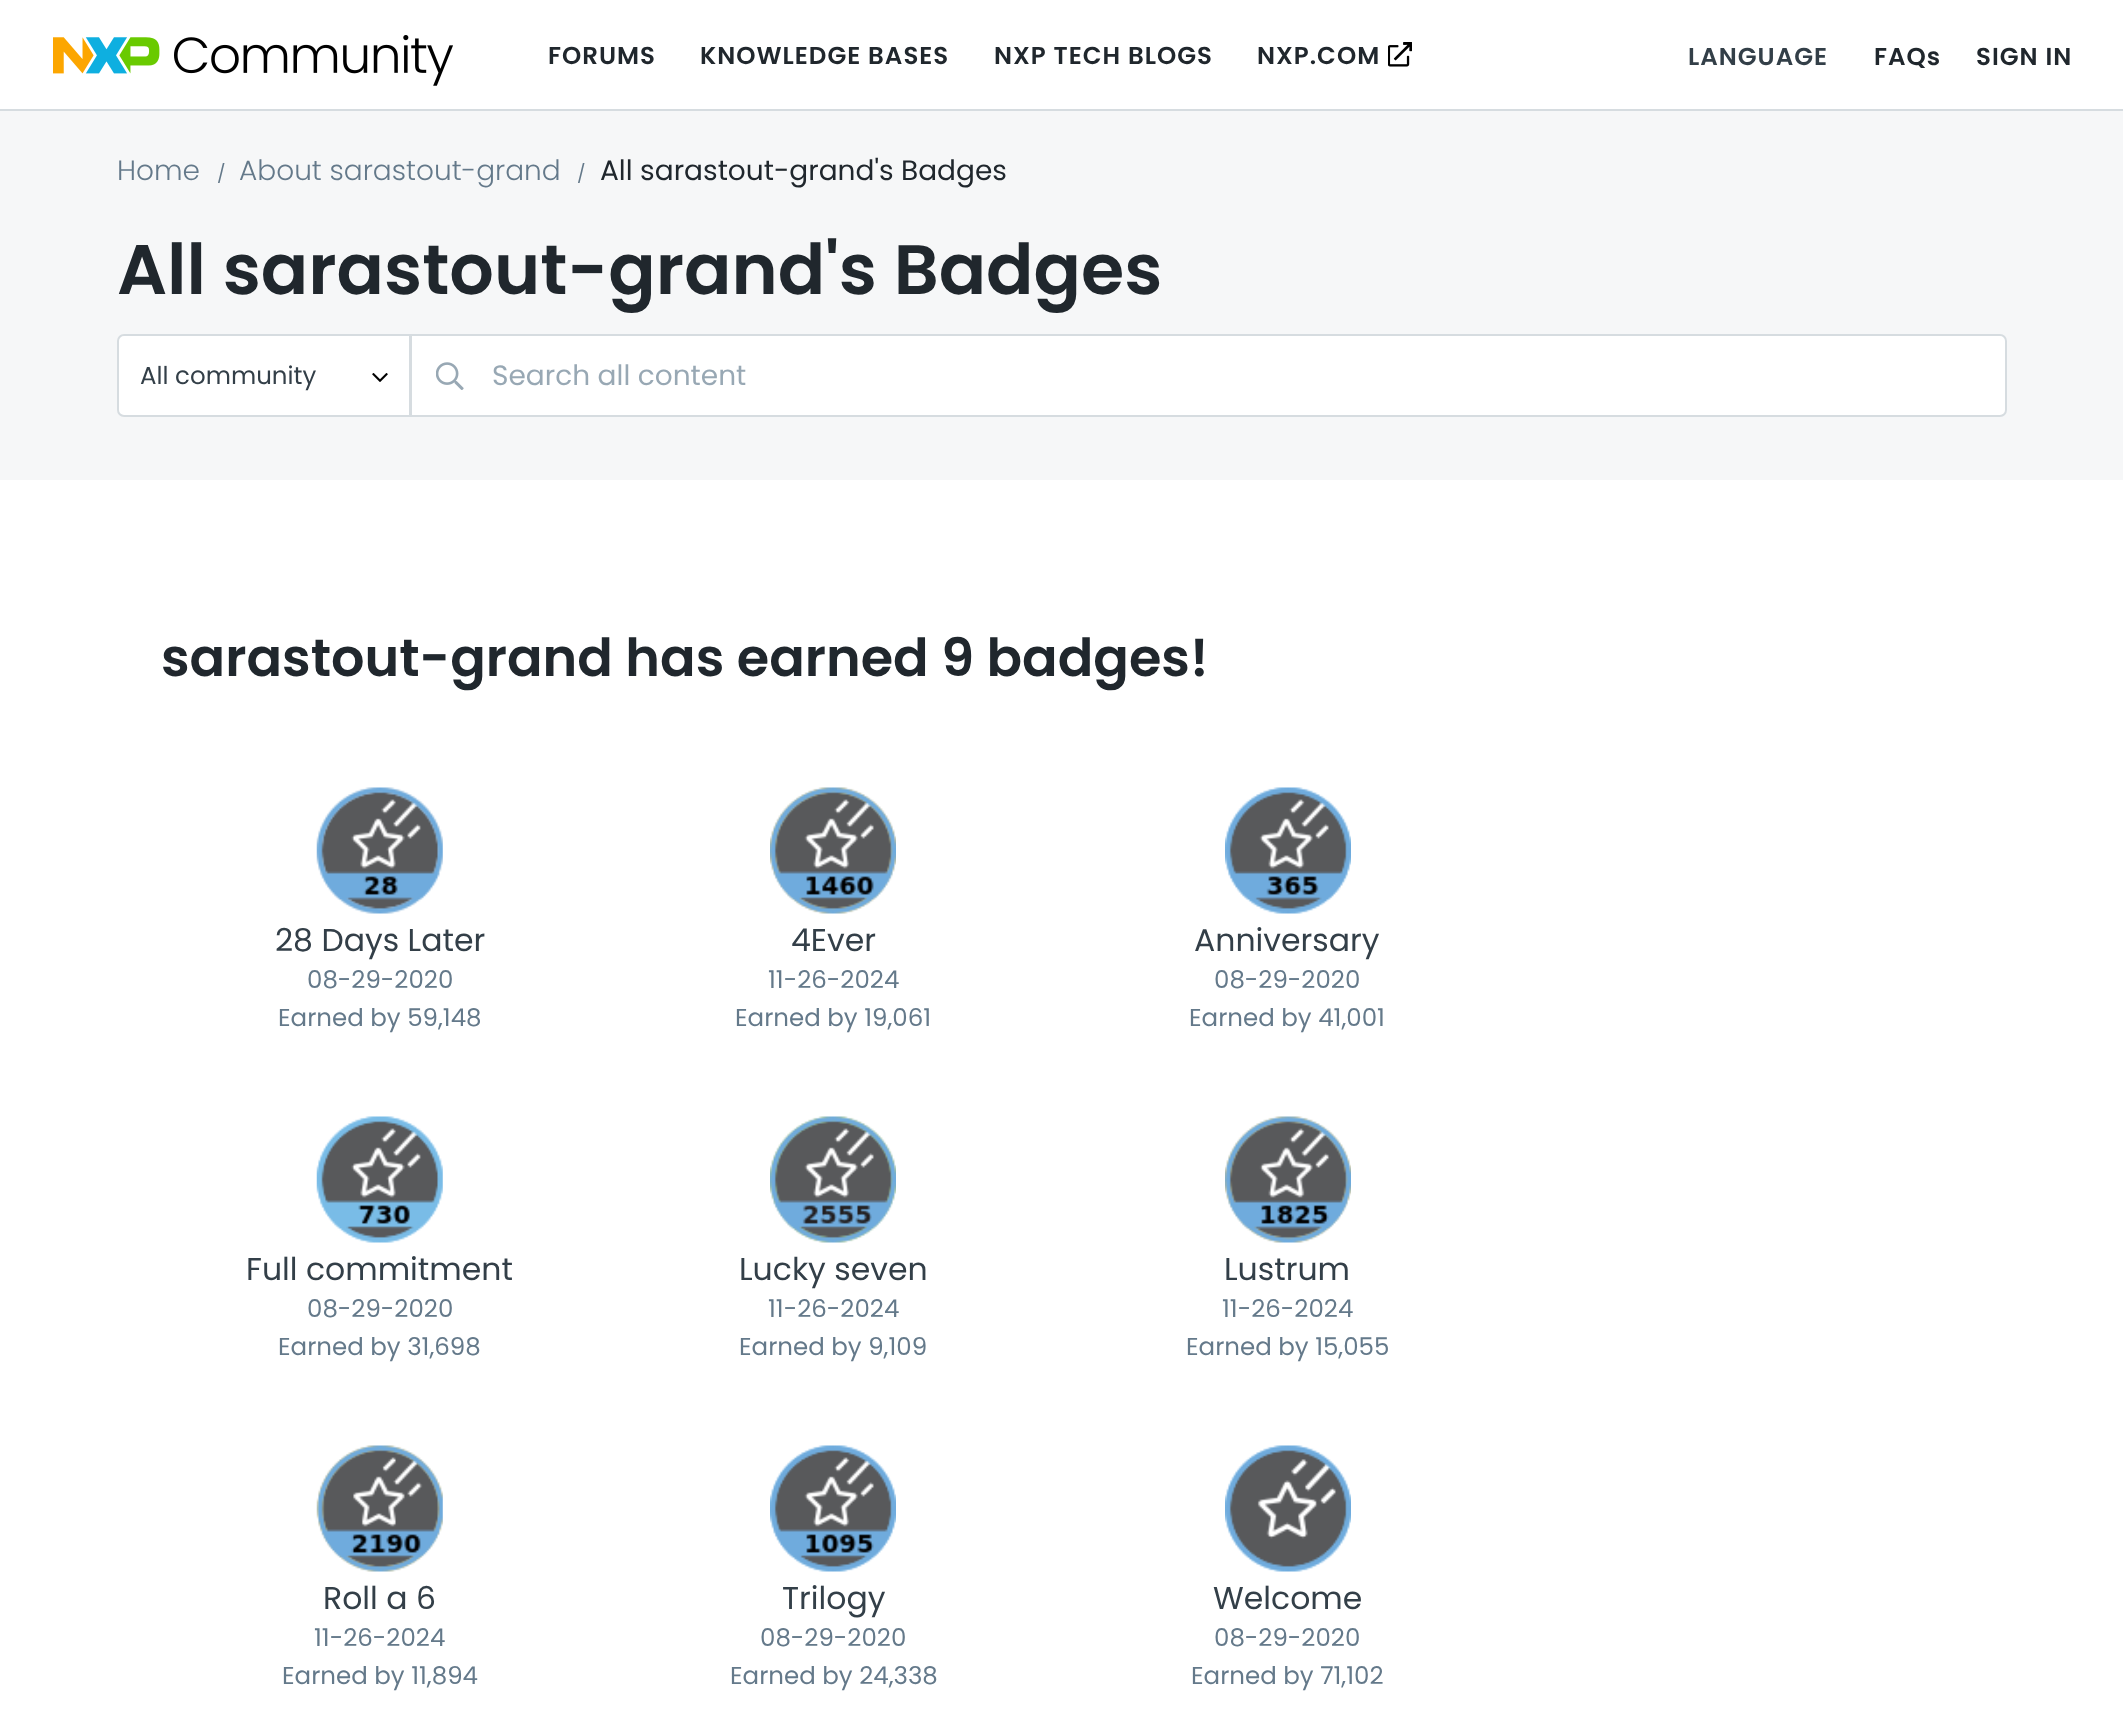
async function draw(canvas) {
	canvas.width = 2123;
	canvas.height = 1717;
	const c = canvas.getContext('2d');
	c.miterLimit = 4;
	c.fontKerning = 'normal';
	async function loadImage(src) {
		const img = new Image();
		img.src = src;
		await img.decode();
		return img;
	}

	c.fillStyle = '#fff';
	c.fillRect(0, 0, 2123, 1717);
	c.fillStyle = '#d6dce0';
	c.fillRect(0, 109, 2123, 2);
	c.drawImage(await loadImage('img1.png'), 53, 35, 400, 51);
	c.letterSpacing = '1px';
	c.font = '600 24.5px Poppins';
	c.fillStyle = '#20272d';
	for (const [text, x, y] of [
		['FORUMS', 548, 64],
		['KNOWLEDGE BASES', 700, 64],
		['NXP TECH BLOGS', 994, 64],
		['NXP.COM', 1257, 64],
	]) {
		c.fillText(text, x, y);
	}
	c.drawImage(await loadImage('img2.png'), 1388, 42, 24, 25);
	c.fillStyle = '#333f48';
	c.fillText('LANGUAGE', 1688, 65);
	c.fillStyle = '#20272d';
	c.fillText('FAQs', 1874, 65);
	c.fillText('SIGN IN', 1976, 65);
	c.fillStyle = '#f6f7f8';
	c.fillRect(0, 111, 2123, 369);
	c.letterSpacing = '0px';
	c.font = '300 28px Poppins';
	c.fillStyle = '#64798a';
	c.fillText('Home', 117, 180);
	c.font = '18px Poppins';
	c.fillText('/', 217, 180);
	c.font = '300 28px Poppins';
	c.fillText('About sarastout-grand', 239, 180);
	c.font = '18px Poppins';
	c.fillText('/', 577, 180);
	c.font = '28px Poppins';
	c.fillStyle = '#20272d';
	c.fillText('All sarastout-grand\'s Badges', 600, 180);
	c.font = '600 70px Poppins';
	c.fillText('All sarastout-grand\'s Badges', 117, 294);
	c.fillStyle = '#fff';
	c.beginPath();
	c.roundRect(411, 335, 1595, 81, [0, 6, 6, 0]);
	c.fill();
	c.strokeStyle = '#d6dce0';
	c.lineWidth = 2;
	c.stroke();
	c.beginPath();
	c.roundRect(118, 335, 292, 81, [6, 0, 0, 6]);
	c.fill();
	c.stroke();
	c.font = '24.5px Poppins';
	c.fillStyle = '#333f48';
	c.fillText('All community', 140, 384);
	c.drawImage(await loadImage('img3.png'), 372, 373, 16, 9);
	c.drawImage(await loadImage('img4.png'), 436, 362, 28, 28);
	c.font = '28px Poppins';
	c.fillStyle = '#98a8b4';
	c.fillText('Search all content', 492, 385);
	c.font = '600 52.5px Poppins';
	c.fillStyle = '#20272d';
	c.fillText('sarastout-grand has earned 9 badges!', 161, 676);
	c.drawImage(await loadImage('img5.png'), 316, 787, 127, 127);
	c.font = '31.5px Poppins';
	c.fillStyle = '#333f48';
	c.fillText('28 Days Later', 275, 951);
	c.font = '24.5px Poppins';
	c.fillStyle = '#64798a';
	c.fillText('08-29-2020', 307, 988);
	c.fillText('Earned by 59,148', 278, 1026);
	c.drawImage(await loadImage('img6.png'), 770, 787, 126, 127);
	c.font = '31.5px Poppins';
	c.fillStyle = '#333f48';
	c.fillText('4Ever', 791, 951);
	c.font = '24.5px Poppins';
	c.fillStyle = '#64798a';
	c.fillText('11-26-2024', 768, 988);
	c.fillText('Earned by 19,061', 735, 1026);
	c.drawImage(await loadImage('img7.png'), 1225, 787, 126, 127);
	c.font = '31.5px Poppins';
	c.fillStyle = '#333f48';
	c.fillText('Anniversary', 1194, 951);
	c.font = '24.5px Poppins';
	c.fillStyle = '#64798a';
	c.fillText('08-29-2020', 1214, 988);
	c.fillText('Earned by 41,001', 1189, 1026);
	c.drawImage(await loadImage('img8.png'), 316, 1116, 127, 127);
	c.font = '31.5px Poppins';
	c.fillStyle = '#333f48';
	c.fillText('Full commitment', 246, 1280);
	c.font = '24.5px Poppins';
	c.fillStyle = '#64798a';
	c.fillText('08-29-2020', 307, 1317);
	c.fillText('Earned by 31,698', 278, 1355);
	c.drawImage(await loadImage('img9.png'), 770, 1116, 126, 127);
	c.font = '31.5px Poppins';
	c.fillStyle = '#333f48';
	c.fillText('Lucky seven', 739, 1280);
	c.font = '24.5px Poppins';
	c.fillStyle = '#64798a';
	c.fillText('11-26-2024', 768, 1317);
	c.fillText('Earned by 9,109', 739, 1355);
	c.drawImage(await loadImage('img10.png'), 1225, 1116, 126, 127);
	c.font = '31.5px Poppins';
	c.fillStyle = '#333f48';
	c.fillText('Lustrum', 1224, 1280);
	c.font = '24.5px Poppins';
	c.fillStyle = '#64798a';
	c.fillText('11-26-2024', 1222, 1317);
	c.fillText('Earned by 15,055', 1186, 1355);
	c.drawImage(await loadImage('img11.png'), 316, 1445, 127, 127);
	c.font = '31.5px Poppins';
	c.fillStyle = '#333f48';
	c.fillText('Roll a 6', 323, 1609);
	c.font = '24.5px Poppins';
	c.fillStyle = '#64798a';
	c.fillText('11-26-2024', 314, 1646);
	c.fillText('Earned by 11,894', 282, 1684);
	c.drawImage(await loadImage('img12.png'), 770, 1445, 126, 127);
	c.font = '31.5px Poppins';
	c.fillStyle = '#333f48';
	c.fillText('Trilogy', 782, 1609);
	c.font = '24.5px Poppins';
	c.fillStyle = '#64798a';
	c.fillText('08-29-2020', 760, 1646);
	c.fillText('Earned by 24,338', 730, 1684);
	c.drawImage(await loadImage('img13.png'), 1225, 1445, 126, 127);
	c.font = '31.5px Poppins';
	c.fillStyle = '#333f48';
	c.fillText('Welcome', 1213, 1609);
	c.font = '24.5px Poppins';
	c.fillStyle = '#64798a';
	c.fillText('08-29-2020', 1214, 1646);
	c.fillText('Earned by 71,102', 1191, 1684);
}

draw(document.querySelector('canvas'));
